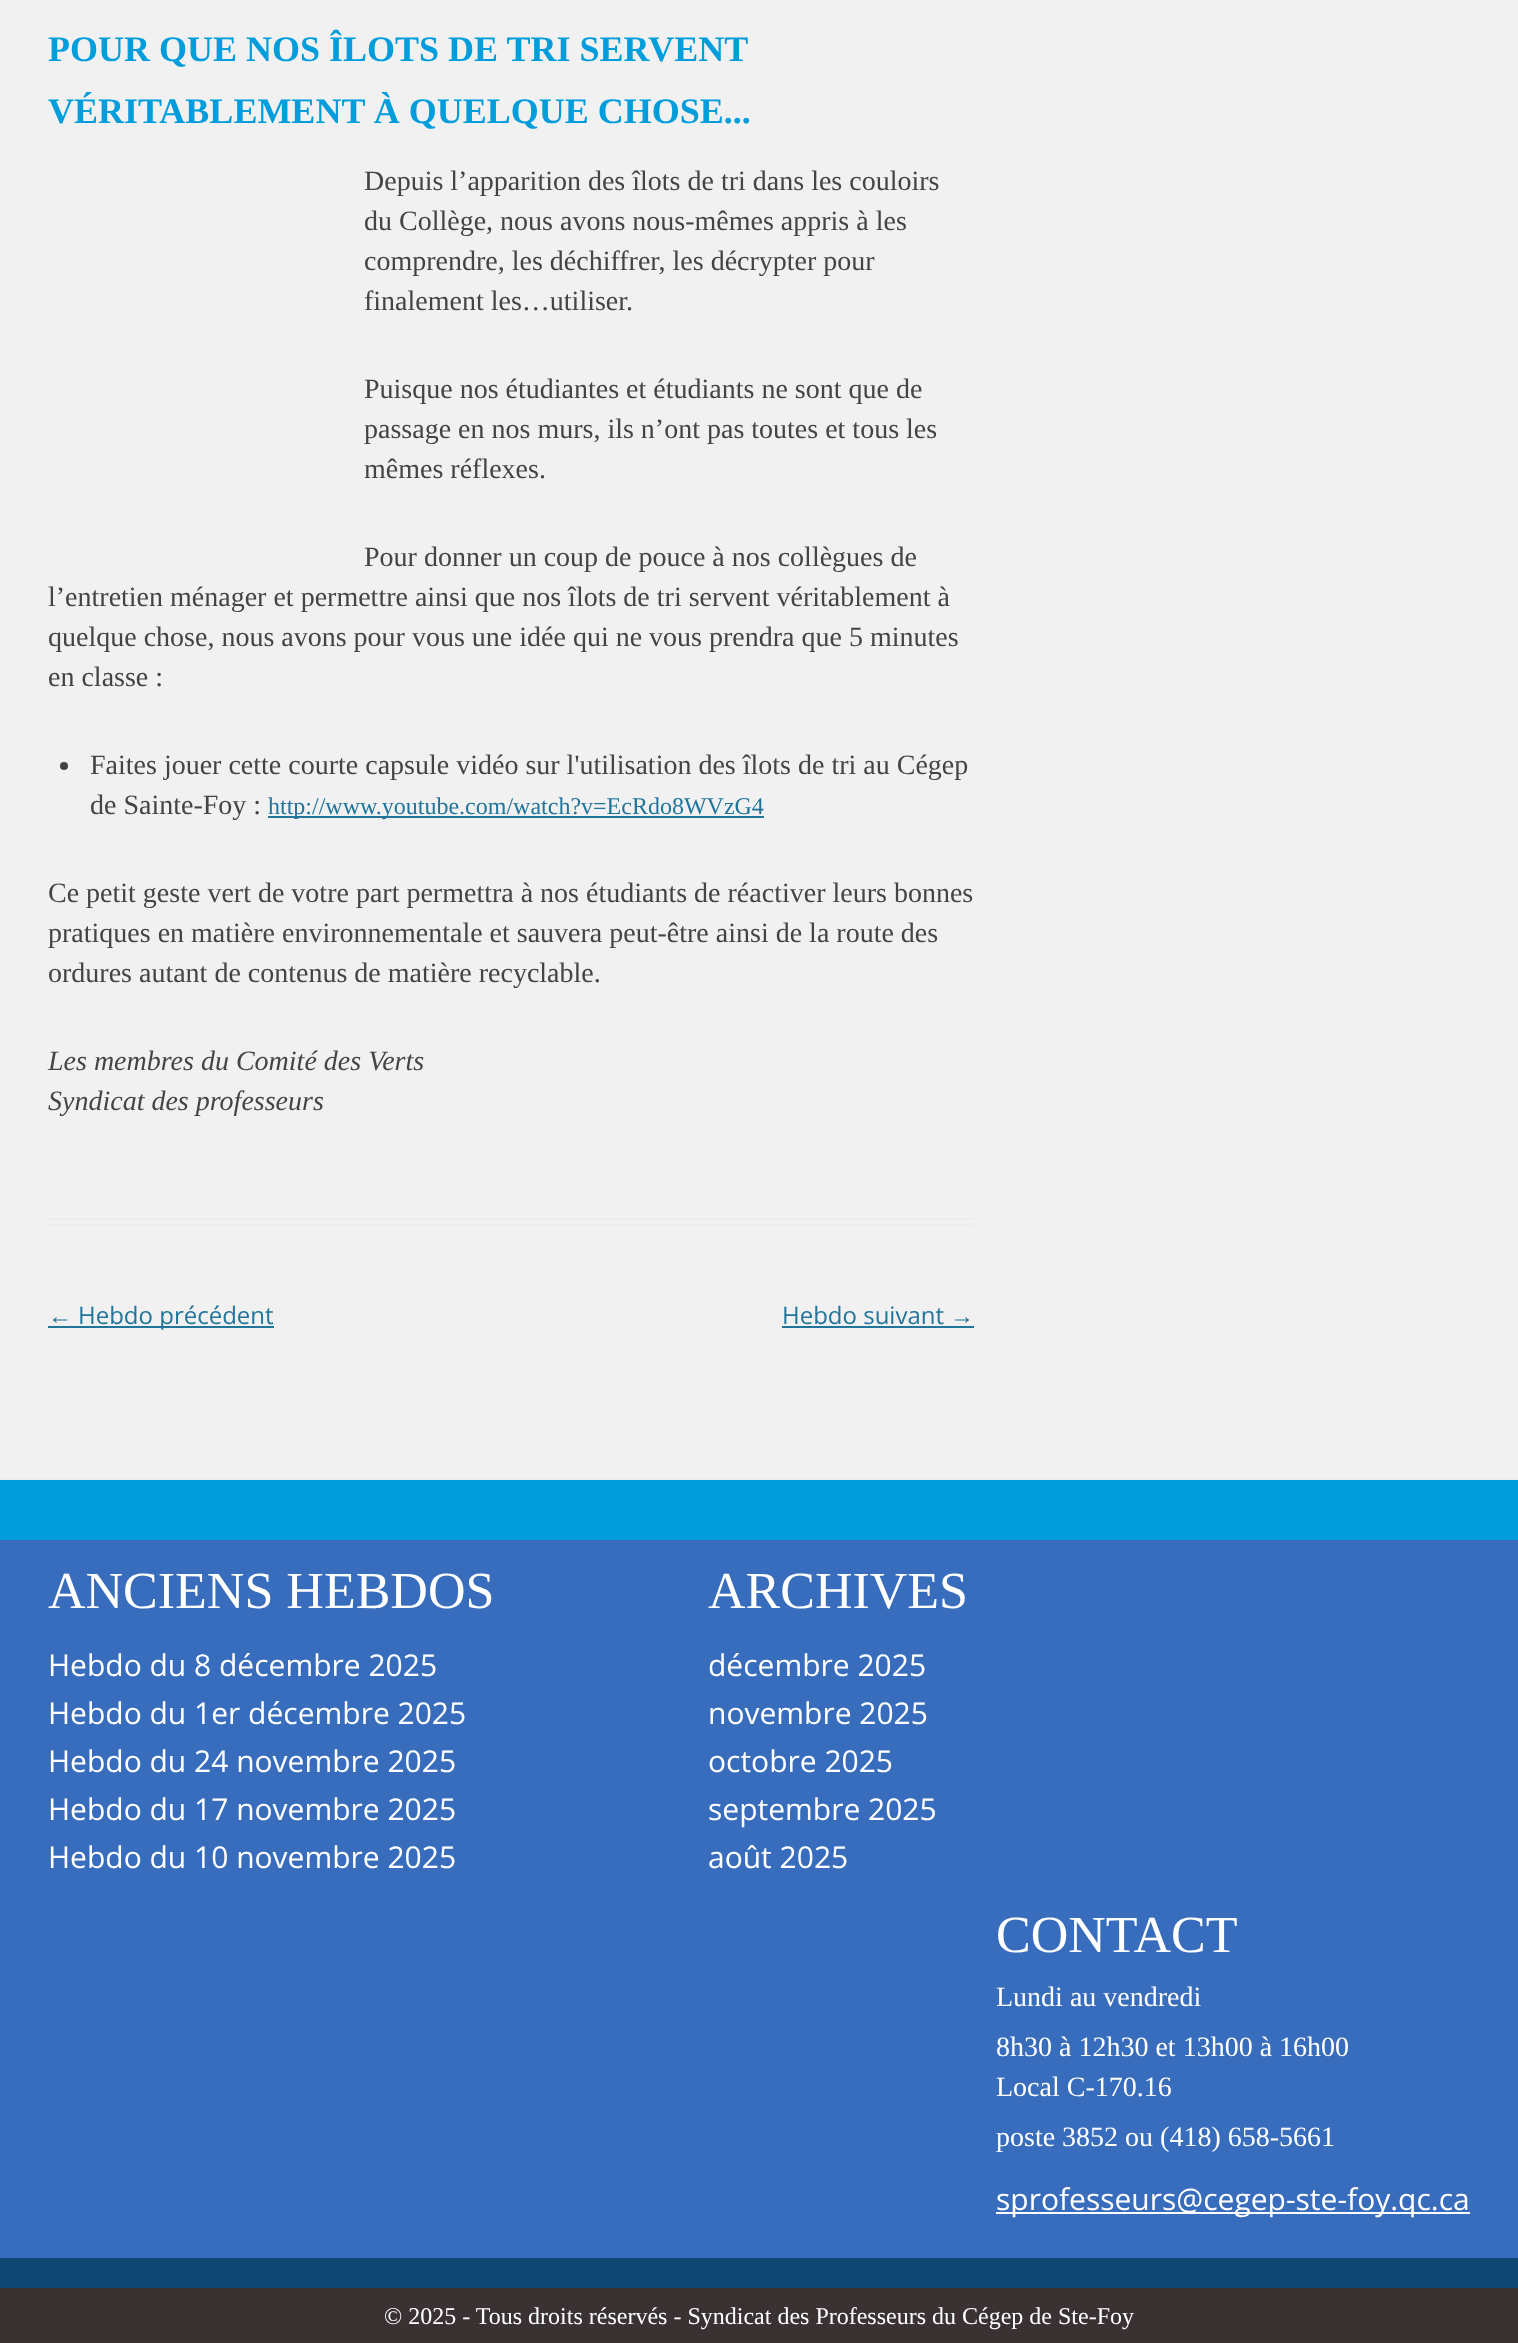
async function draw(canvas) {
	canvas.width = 1518;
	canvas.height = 2343;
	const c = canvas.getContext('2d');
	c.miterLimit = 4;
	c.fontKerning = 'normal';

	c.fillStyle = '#f1f1f1';
	c.fillRect(0, 0, 1518, 2343);
	c.fillStyle = '#ededed';
	c.fillRect(48, 1218, 926, 2);
	c.fillRect(48, 1224, 926, 2);
	c.font = 'bold 36px Liberation Serif';
	c.fillStyle = '#009ddd';
	c.fillText('POUR QUE NOS ÎLOTS DE TRI SERVENT', 48, 61);
	c.fillText('VÉRITABLEMENT À QUELQUE CHOSE...', 48, 123);
	c.font = '28px Liberation Serif';
	c.fillStyle = '#444';
	for (const [text, x, y] of [
		['Depuis l’apparition des îlots de tri dans les couloirs', 364, 190],
		['du Collège, nous avons nous-mêmes appris à les', 364, 230],
		['comprendre, les déchiffrer, les décrypter pour', 364, 270],
		['finalement les…utiliser.', 364, 310],
		['Puisque nos étudiantes et étudiants ne sont que de', 364, 398],
		['passage en nos murs, ils n’ont pas toutes et tous les', 364, 438],
		['mêmes réflexes.', 364, 478],
		['Pour donner un coup de pouce à nos collègues de', 364, 566],
		['l’entretien ménager et permettre ainsi que nos îlots de tri servent véritablement à', 48, 606],
		['quelque chose, nous avons pour vous une idée qui ne vous prendra que 5 minutes', 48, 646],
		['en classe :', 48, 686],
	]) {
		c.fillText(text, x, y);
	}
	c.beginPath();
	c.arc(64, 766, 4, 0, 2 * Math.PI);
	c.fill();
	c.fillText('Faites jouer cette courte capsule vidéo sur l\'utilisation des îlots de tri au Cégep', 90, 774);
	c.fillText('de Sainte-Foy :', 90, 814);
	c.fillStyle = '#21759b';
	c.fillRect(268, 816, 496, 2);
	c.font = '24px Liberation Serif';
	c.fillText('http://www.youtube.com/watch?v=EcRdo8WVzG4', 268, 814);
	c.font = '28px Liberation Serif';
	c.fillStyle = '#444';
	for (const [text, x, y] of [
		['Ce petit geste vert de votre part permettra à nos étudiants de réactiver leurs bonnes', 48, 902],
		['pratiques en matière environnementale et sauvera peut-être ainsi de la route des', 48, 942],
		['ordures autant de contenus de matière recyclable.', 48, 982],
	]) {
		c.fillText(text, x, y);
	}
	c.font = 'italic 28px Liberation Serif';
	c.fillText('Les membres du Comité des Verts', 48, 1070);
	c.fillText('Syndicat des professeurs', 48, 1110);
	c.font = '24px Liberation Sans';
	c.fillStyle = '#21759b';
	c.fillText('←', 48, 1324);
	c.fillRect(48, 1326, 226, 2);
	c.font = '24px Open Sans';
	c.fillText('Hebdo précédent', 78, 1324);
	c.fillText('Hebdo suivant', 782, 1324);
	c.font = '24px Liberation Sans';
	c.fillText('→', 950, 1324);
	for (const [x, y, w, h, color] of [
		[782, 1326, 192, 2, '#21759b'],
		[0, 1478, 1518, 2, '#ededed'],
		[0, 1480, 1518, 60, '#009ddd'],
		[0, 1540, 1518, 718, '#386dbd'],
	]) {
		c.fillStyle = color;
		c.fillRect(x, y, w, h);
	}
	c.font = '52px Liberation Serif';
	c.fillStyle = '#fff';
	c.fillText('ANCIENS HEBDOS', 48, 1608);
	c.font = '30px Open Sans';
	for (const [text, x, y] of [
		['Hebdo du 8 décembre 2025', 48, 1676],
		['Hebdo du 1er décembre 2025', 48, 1724],
		['Hebdo du 24 novembre 2025', 48, 1772],
		['Hebdo du 17 novembre 2025', 48, 1820],
		['Hebdo du 10 novembre 2025', 48, 1868],
	]) {
		c.fillText(text, x, y);
	}
	c.font = '52px Liberation Serif';
	c.fillText('ARCHIVES', 708, 1608);
	c.font = '30px Open Sans';
	for (const [text, x, y] of [
		['décembre 2025', 708, 1676],
		['novembre 2025', 708, 1724],
		['octobre 2025', 708, 1772],
		['septembre 2025', 708, 1820],
		['août 2025', 708, 1868],
	]) {
		c.fillText(text, x, y);
	}
	c.font = '52px Liberation Serif';
	c.fillText('CONTACT', 996, 1952);
	c.font = '28px Liberation Serif';
	for (const [text, x, y] of [
		['Lundi au vendredi', 996, 2006],
		['8h30 à 12h30 et 13h00 à 16h00', 996, 2056],
		['Local C-170.16', 996, 2096],
		['poste 3852 ou (418) 658-5661', 996, 2146],
	]) {
		c.fillText(text, x, y);
	}
	c.fillRect(996, 2212, 474, 2);
	c.font = '30px Open Sans';
	c.fillText('sprofesseurs@cegep-ste-foy.qc.ca', 996, 2210);
	c.fillStyle = '#0f4571';
	c.fillRect(0, 2258, 1518, 30);
	c.fillStyle = '#3a3132';
	c.fillRect(0, 2288, 1518, 55);
	c.font = '24px Liberation Serif';
	c.fillStyle = '#fff';
	c.fillText('© 2025 - Tous droits réservés - Syndicat des Professeurs du Cégep de Ste-Foy', 384, 2324);
}

draw(document.querySelector('canvas'));
